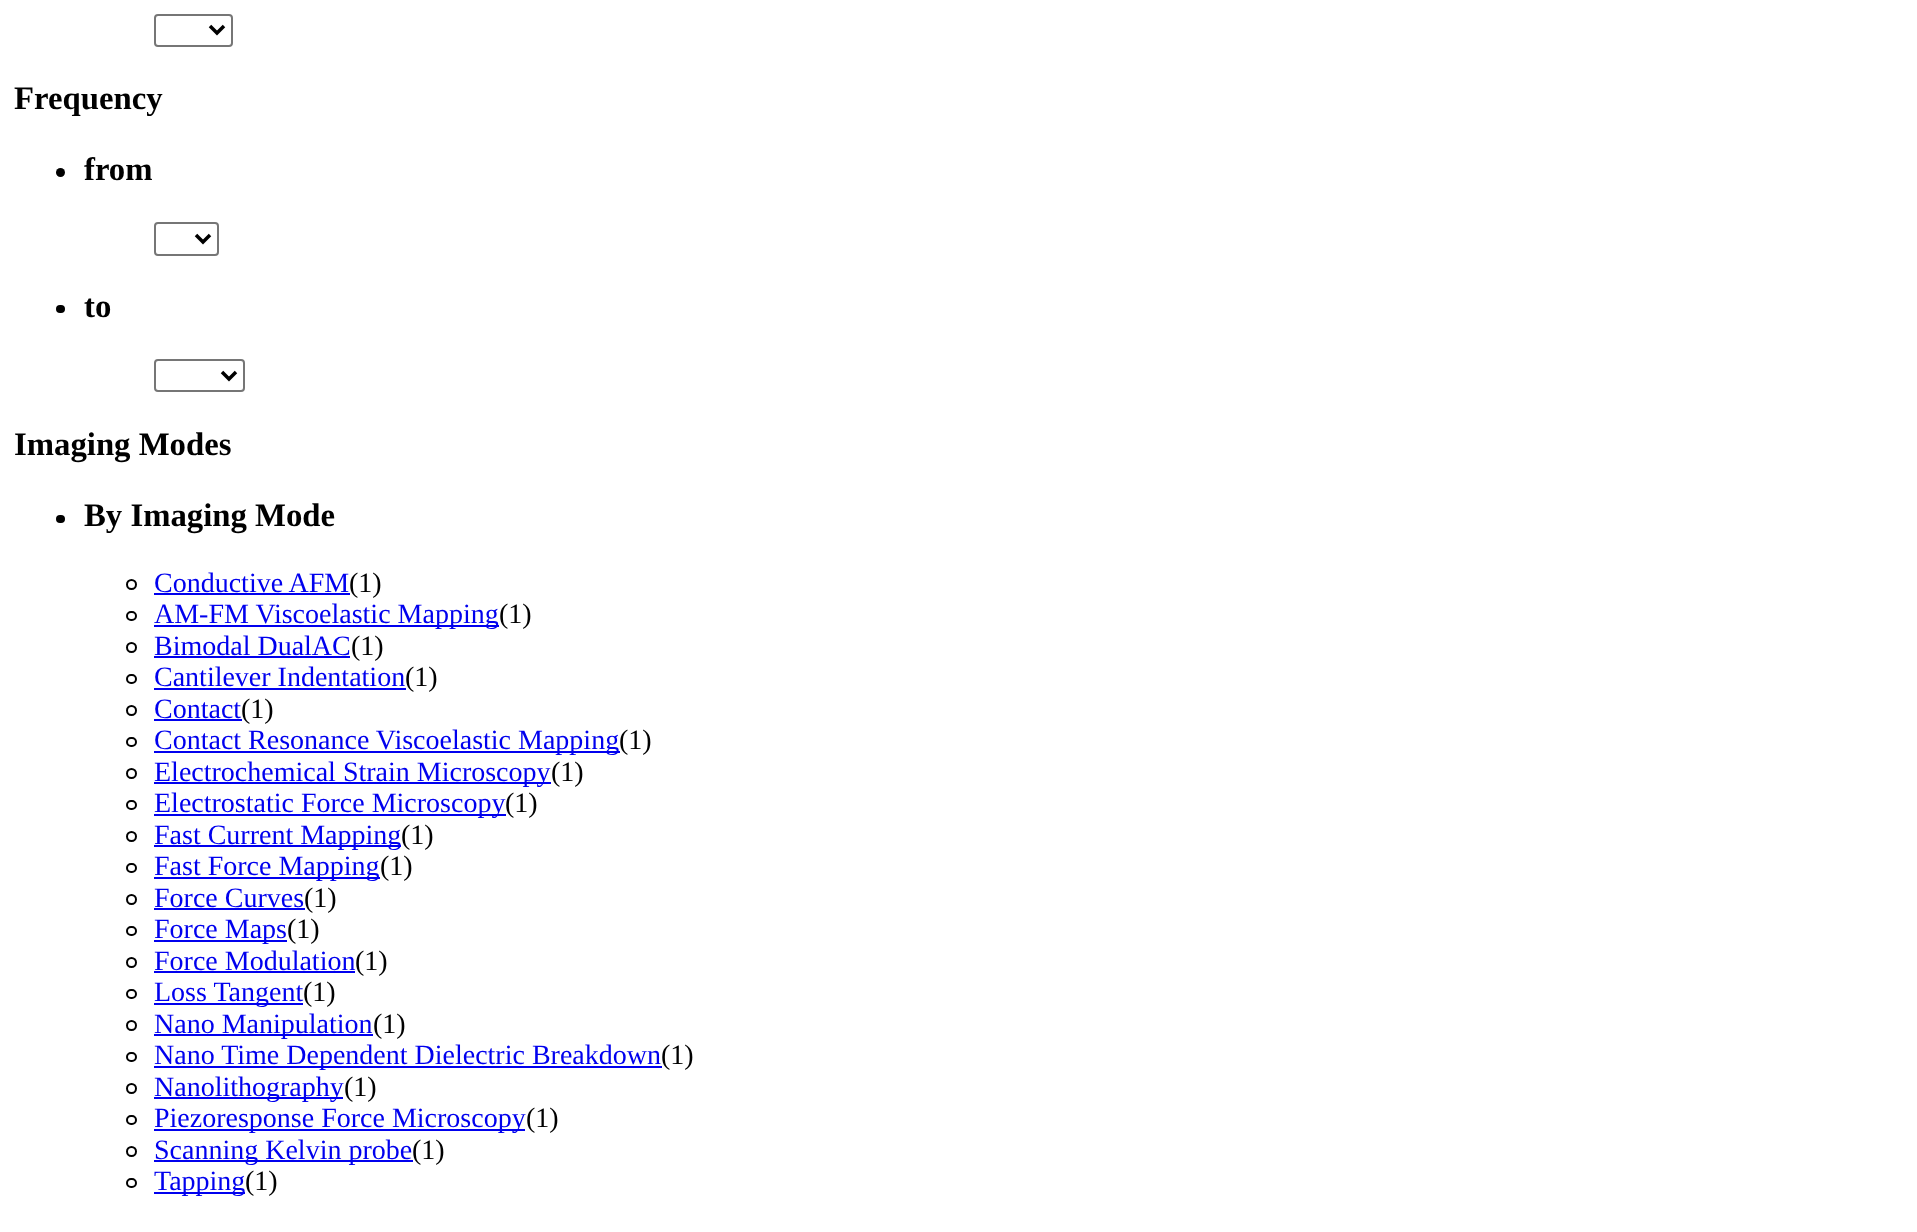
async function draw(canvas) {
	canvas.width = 1917;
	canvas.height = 1232;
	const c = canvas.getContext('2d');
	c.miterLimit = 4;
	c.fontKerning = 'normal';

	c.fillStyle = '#fff';
	c.fillRect(0, 0, 1917, 1232);
	c.beginPath();
	c.roundRect(155, 15, 77, 31, 3);
	c.strokeStyle = '#767676';
	c.lineWidth = 2;
	c.stroke();
	c.beginPath();
	c.moveTo(210, 26);
	c.lineTo(217, 33);
	c.lineTo(224, 26);
	c.strokeStyle = '#000';
	c.lineWidth = 3.5;
	c.stroke();
	c.font = 'bold 32.75px Liberation Serif';
	c.fillStyle = '#000';
	c.fillText('Frequency', 14, 109);
	c.beginPath();
	c.arc(60.5, 172.5, 4.5, 0, 2 * Math.PI);
	c.fill();
	c.fillText('from', 84, 180);
	c.beginPath();
	c.roundRect(155, 223, 63, 32, 3);
	c.strokeStyle = '#767676';
	c.lineWidth = 2;
	c.stroke();
	c.beginPath();
	c.moveTo(196, 235);
	c.lineTo(203, 242);
	c.lineTo(210, 235);
	c.strokeStyle = '#000';
	c.lineWidth = 3.5;
	c.stroke();
	c.beginPath();
	c.roundRect(56, 305, 9, 8, 4);
	c.fill();
	c.fillText('to', 84, 317);
	c.beginPath();
	c.roundRect(155, 360, 89, 31, 3);
	c.strokeStyle = '#767676';
	c.lineWidth = 2;
	c.stroke();
	c.beginPath();
	c.moveTo(222, 372);
	c.lineTo(229, 379);
	c.lineTo(236, 372);
	c.strokeStyle = '#000';
	c.lineWidth = 3.5;
	c.stroke();
	c.fillText('Imaging Modes', 14, 455);
	c.beginPath();
	c.roundRect(56, 515, 9, 8, 4);
	c.fill();
	c.fillText('By Imaging Mode', 84, 526);
	c.beginPath();
	c.arc(131.5, 584.5, 4.5, 0, 2 * Math.PI);
	c.lineWidth = 2;
	c.stroke();
	c.font = '28px Liberation Serif';
	c.fillStyle = '#00e';
	c.fillText('Conductive AFM', 154, 592);
	c.fillRect(154, 593, 196, 2);
	c.fillStyle = '#000';
	c.fillText('(1)', 349, 592);
	c.beginPath();
	c.roundRect(127, 612, 9, 8, 4);
	c.stroke();
	c.fillStyle = '#00e';
	c.fillRect(154, 625, 345, 2);
	c.fillText('AM-FM Viscoelastic Mapping', 154, 623);
	c.fillStyle = '#000';
	c.fillText('(1)', 499, 623);
	c.beginPath();
	c.arc(131.5, 647.5, 4.5, 0, 2 * Math.PI);
	c.stroke();
	c.fillStyle = '#00e';
	c.fillText('Bimodal DualAC', 154, 655);
	c.fillRect(154, 656, 196, 2);
	c.fillStyle = '#000';
	c.fillText('(1)', 351, 655);
	c.beginPath();
	c.roundRect(127, 675, 9, 8, 4);
	c.stroke();
	c.fillStyle = '#00e';
	c.fillText('Cantilever Indentation', 154, 686);
	c.fillRect(154, 688, 252, 2);
	c.fillStyle = '#000';
	c.fillText('(1)', 405, 686);
	c.beginPath();
	c.arc(131.5, 710.5, 4.5, 0, 2 * Math.PI);
	c.stroke();
	c.fillStyle = '#00e';
	c.fillText('Contact', 154, 718);
	c.fillRect(154, 719, 88, 2);
	c.fillStyle = '#000';
	c.fillText('(1)', 241, 718);
	c.beginPath();
	c.roundRect(127, 738, 9, 8, 4);
	c.stroke();
	c.fillStyle = '#00e';
	c.fillRect(154, 751, 466, 2);
	c.fillText('Contact Resonance Viscoelastic Mapping', 154, 749);
	c.fillStyle = '#000';
	c.fillText('(1)', 619, 749);
	c.beginPath();
	c.arc(131.5, 773.5, 4.5, 0, 2 * Math.PI);
	c.stroke();
	c.fillStyle = '#00e';
	c.fillRect(154, 782, 397, 2);
	c.fillText('Electrochemical Strain Microscopy', 154, 781);
	c.fillStyle = '#000';
	c.fillText('(1)', 551, 781);
	c.beginPath();
	c.roundRect(127, 801, 9, 8, 4);
	c.stroke();
	c.fillStyle = '#00e';
	c.fillRect(154, 814, 352, 2);
	c.fillText('Electrostatic Force Microscopy', 154, 812);
	c.fillStyle = '#000';
	c.fillText('(1)', 505, 812);
	c.beginPath();
	c.arc(131.5, 836.5, 4.5, 0, 2 * Math.PI);
	c.stroke();
	c.fillStyle = '#00e';
	c.fillRect(154, 845, 247, 2);
	c.fillText('Fast Current Mapping', 154, 844);
	c.fillStyle = '#000';
	c.fillText('(1)', 401, 844);
	c.beginPath();
	c.roundRect(127, 864, 9, 8, 4);
	c.stroke();
	c.fillStyle = '#00e';
	c.fillRect(154, 877, 226, 2);
	c.fillText('Fast Force Mapping', 154, 875);
	c.fillStyle = '#000';
	c.fillText('(1)', 380, 875);
	c.beginPath();
	c.arc(131.5, 899.5, 4.5, 0, 2 * Math.PI);
	c.stroke();
	c.fillStyle = '#00e';
	c.fillText('Force Curves', 154, 907);
	c.fillRect(154, 908, 151, 2);
	c.fillStyle = '#000';
	c.fillText('(1)', 304, 907);
	c.beginPath();
	c.roundRect(127, 927, 9, 8, 4);
	c.stroke();
	c.fillStyle = '#00e';
	c.fillRect(154, 940, 133, 2);
	c.fillText('Force Maps', 154, 938);
	c.fillStyle = '#000';
	c.fillText('(1)', 287, 938);
	c.beginPath();
	c.arc(131.5, 962.5, 4.5, 0, 2 * Math.PI);
	c.stroke();
	c.fillStyle = '#00e';
	c.fillText('Force Modulation', 154, 970);
	c.fillRect(154, 971, 201, 2);
	c.fillStyle = '#000';
	c.fillText('(1)', 355, 970);
	c.beginPath();
	c.roundRect(127, 990, 9, 8, 4);
	c.stroke();
	c.fillStyle = '#00e';
	c.fillRect(154, 1003, 149, 2);
	c.fillText('Loss Tangent', 154, 1001);
	c.fillStyle = '#000';
	c.fillText('(1)', 303, 1001);
	c.beginPath();
	c.arc(131.5, 1025.5, 4.5, 0, 2 * Math.PI);
	c.stroke();
	c.fillStyle = '#00e';
	c.fillRect(154, 1034, 219, 2);
	c.fillText('Nano Manipulation', 154, 1033);
	c.fillStyle = '#000';
	c.fillText('(1)', 373, 1033);
	c.beginPath();
	c.roundRect(127, 1053, 9, 8, 4);
	c.stroke();
	c.fillStyle = '#00e';
	c.fillRect(154, 1066, 508, 2);
	c.fillText('Nano Time Dependent Dielectric Breakdown', 154, 1064);
	c.fillStyle = '#000';
	c.fillText('(1)', 661, 1064);
	c.beginPath();
	c.arc(131.5, 1088.5, 4.5, 0, 2 * Math.PI);
	c.stroke();
	c.fillStyle = '#00e';
	c.fillRect(154, 1097, 189, 2);
	c.fillText('Nanolithography', 154, 1096);
	c.fillStyle = '#000';
	c.fillText('(1)', 344, 1096);
	c.beginPath();
	c.roundRect(127, 1116, 9, 8, 4);
	c.stroke();
	c.fillStyle = '#00e';
	c.fillRect(154, 1129, 371, 2);
	c.fillText('Piezoresponse Force Microscopy', 154, 1127);
	c.fillStyle = '#000';
	c.fillText('(1)', 526, 1127);
	c.beginPath();
	c.arc(131.5, 1151.5, 4.5, 0, 2 * Math.PI);
	c.stroke();
	c.fillStyle = '#00e';
	c.fillRect(154, 1160, 259, 2);
	c.fillText('Scanning Kelvin probe', 154, 1159);
	c.fillStyle = '#000';
	c.fillText('(1)', 412, 1159);
	c.beginPath();
	c.roundRect(127, 1179, 9, 8, 4);
	c.stroke();
	c.fillStyle = '#00e';
	c.fillRect(154, 1192, 91, 2);
	c.fillText('Tapping', 154, 1190);
	c.fillStyle = '#000';
	c.fillText('(1)', 245, 1190);
}

draw(document.querySelector('canvas'));
